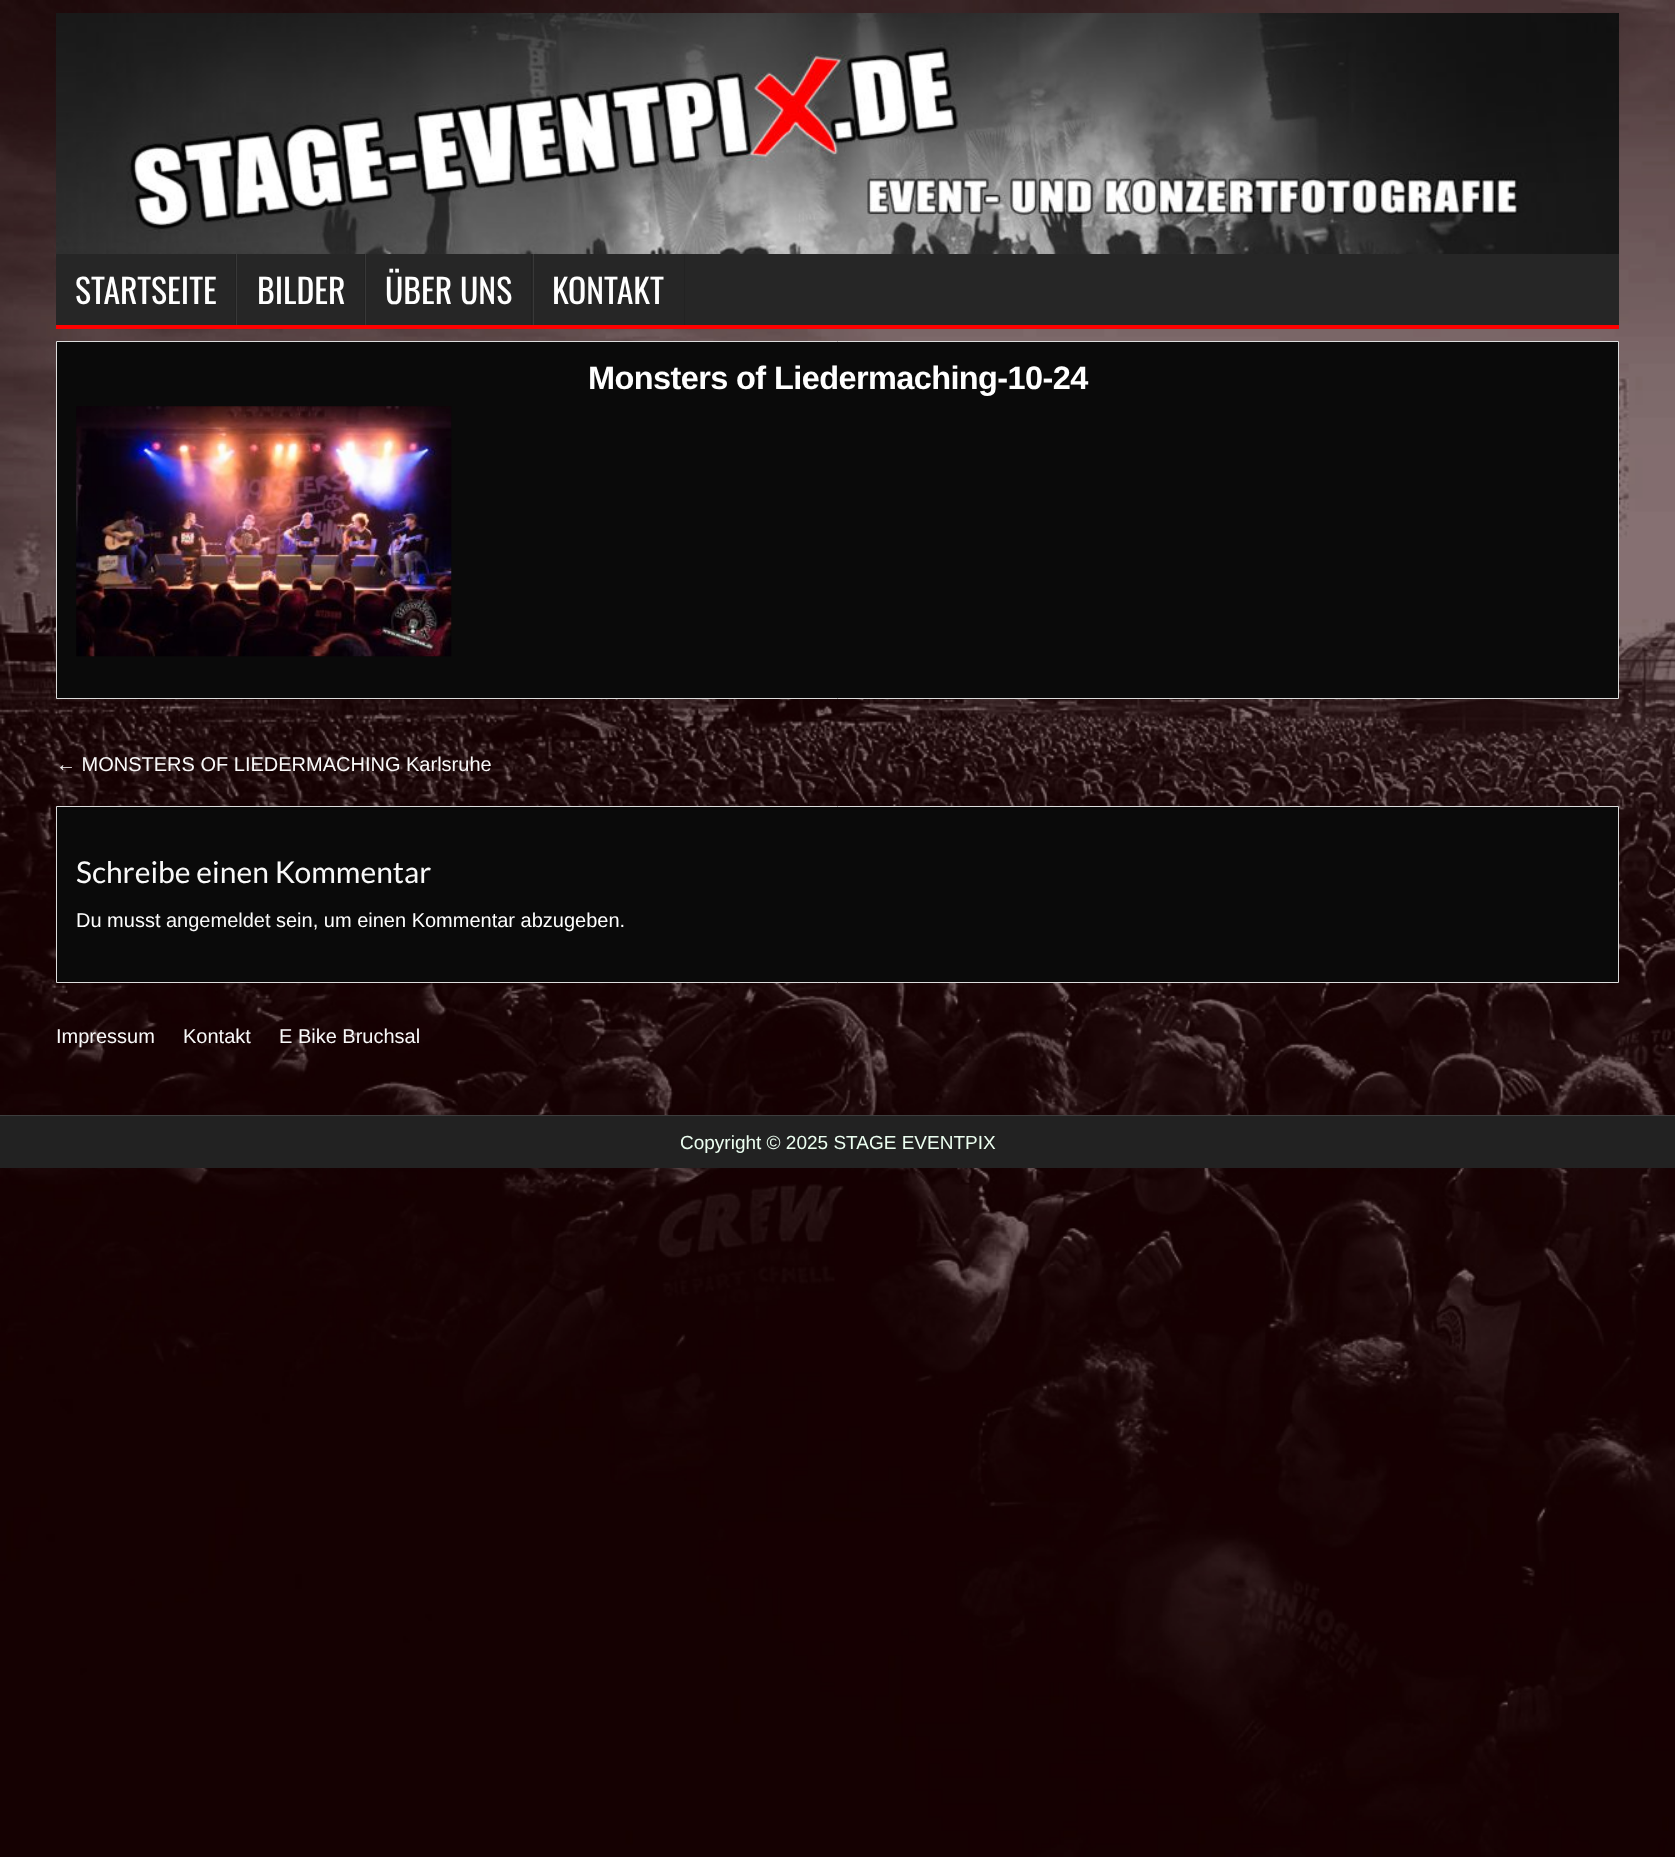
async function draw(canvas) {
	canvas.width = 1675;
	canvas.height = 1857;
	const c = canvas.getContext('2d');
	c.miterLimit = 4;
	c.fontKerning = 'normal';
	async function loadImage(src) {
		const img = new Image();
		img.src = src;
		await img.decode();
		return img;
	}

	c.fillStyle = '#fff';
	c.fillRect(0, 0, 1675, 1857);
	c.drawImage(await loadImage('img1.png'), 0, 0, 1675, 1857);
	c.drawImage(await loadImage('img2.png'), 56, 13, 1563, 241);
	for (const [x, y, w, h, color] of [
		[56, 254, 1563, 71, '#262626'],
		[56, 325, 1563, 4, '#f00'],
		[235, 254, 1, 71, '#222'],
	]) {
		c.fillStyle = color;
		c.fillRect(x, y, w, h);
	}
	c.font = '33.75px Oswald';
	c.fillStyle = '#fff';
	c.fillText('STARTSEITE', 75, 304);
	c.fillStyle = '#222';
	c.fillRect(364, 254, 1, 71);
	c.fillStyle = '#383838';
	c.fillRect(236, 254, 1, 71);
	c.fillStyle = '#fff';
	c.fillText('BILDER', 257, 304);
	c.fillStyle = '#222';
	c.fillRect(531, 254, 1, 71);
	c.fillStyle = '#383838';
	c.fillRect(365, 254, 1, 71);
	c.fillStyle = '#fff';
	c.fillText('ÜBER UNS', 385, 304);
	c.fillStyle = '#222';
	c.fillRect(684, 254, 1, 71);
	c.fillStyle = '#383838';
	c.fillRect(533, 254, 1, 71);
	c.fillStyle = '#fff';
	c.fillText('KONTAKT', 552, 304);
	c.fillStyle = '#0a0a0a';
	c.beginPath();
	c.rect(56.5, 341.5, 1562, 357);
	c.fill();
	c.strokeStyle = '#ddd';
	c.stroke();
	c.letterSpacing = '-0.6px';
	c.font = 'bold 32.5px Arimo';
	c.fillStyle = '#fff';
	c.fillText('Monsters of Liedermaching-10-24', 588, 389);
	c.drawImage(await loadImage('img3.png'), 76, 406, 376, 251);
	c.letterSpacing = '0px';
	c.font = '20px Liberation Sans';
	c.fillStyle = '#f9f9f9';
	c.fillText('← MONSTERS OF LIEDERMACHING Karlsruhe', 56, 771);
	c.fillStyle = '#0a0a0a';
	c.beginPath();
	c.rect(56.5, 806.5, 1562, 176);
	c.fill();
	c.stroke();
	c.font = '30px Lato';
	c.fillStyle = '#f9f9f9';
	c.fillText('Schreibe einen Kommentar', 76, 883);
	c.font = '20px Liberation Sans';
	c.fillStyle = '#fff';
	c.fillText('Du musst', 76, 927);
	c.fillStyle = '#f9f9f9';
	c.fillText('angemeldet', 166, 927);
	c.fillStyle = '#fff';
	c.fillText('sein, um einen Kommentar abzugeben.', 276, 927);
	c.fillStyle = '#f9f9f9';
	for (const [text, x, y] of [
		['Impressum', 56, 1043],
		['Kontakt', 183, 1043],
		['E Bike Bruchsal', 279, 1043],
	]) {
		c.fillText(text, x, y);
	}
	c.fillStyle = '#222';
	c.fillRect(0, 1116, 1675, 52);
	c.fillStyle = '#3d3d3d';
	c.fillRect(0, 1115, 1675, 1);
	c.font = '19px Liberation Sans';
	c.fillStyle = '#ecfff1';
	c.fillText('Copyright © 2025 STAGE EVENTPIX', 680, 1149);
}

draw(document.querySelector('canvas'));
